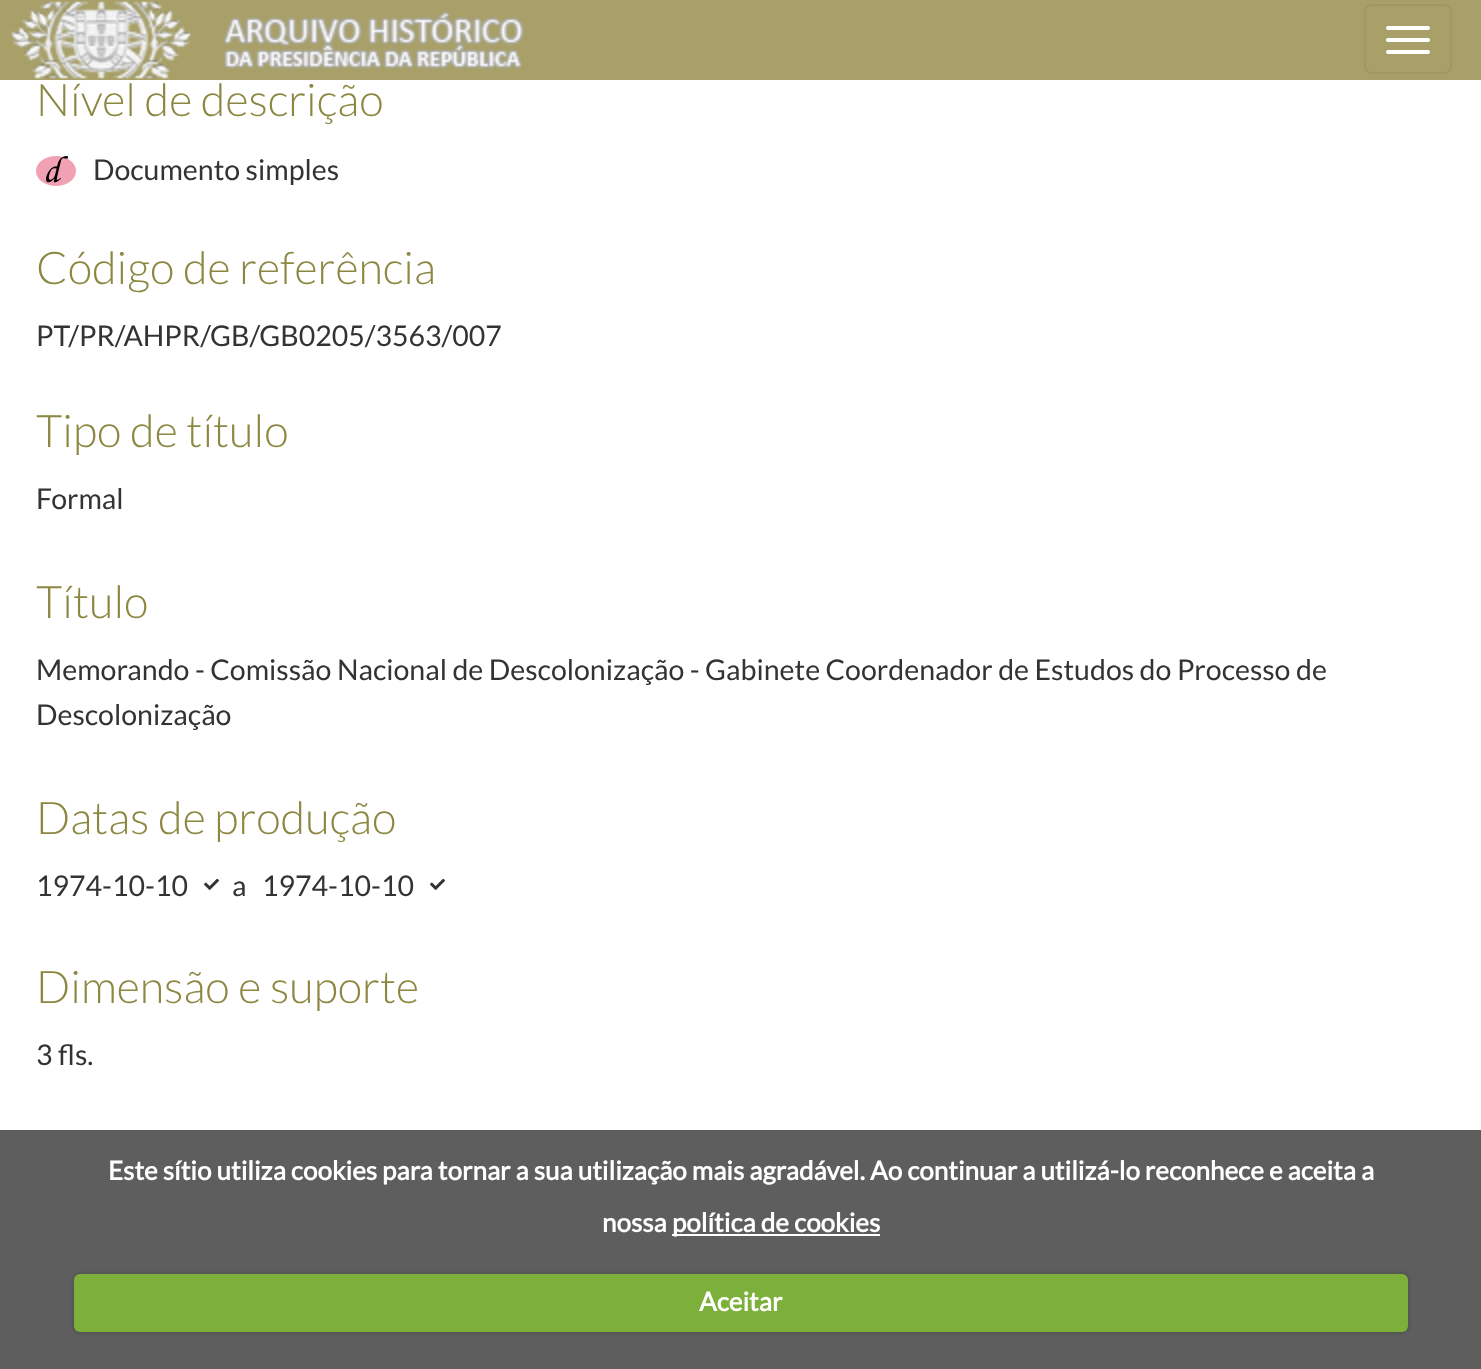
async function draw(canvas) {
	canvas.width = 1481;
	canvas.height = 1369;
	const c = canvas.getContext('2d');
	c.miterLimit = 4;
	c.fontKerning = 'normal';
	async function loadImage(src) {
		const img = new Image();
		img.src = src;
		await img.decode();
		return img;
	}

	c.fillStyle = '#fff';
	c.fillRect(0, 0, 1481, 1369);
	c.fillStyle = '#5e5e5e';
	c.fillRect(0, 1130, 1481, 239);
	c.fillStyle = '#a8a068';
	c.fillRect(0, 0, 1481, 80);
	c.drawImage(await loadImage('img1.png'), 11, 1, 514, 78);
	c.beginPath();
	c.roundRect(1365, 5, 86, 68, 7);
	c.strokeStyle = '#a09863';
	c.lineWidth = 2;
	c.stroke();
	c.fillStyle = '#fff';
	c.beginPath();
	c.roundRect(1386, 26, 44, 4, 2);
	c.fill();
	c.beginPath();
	c.roundRect(1386, 38, 44, 4, 2);
	c.fill();
	c.beginPath();
	c.roundRect(1386, 50, 44, 4, 2);
	c.fill();
	c.font = '300 45px Lato';
	c.fillStyle = '#8c8741';
	c.fillText('Nível de descrição', 36, 116);
	c.drawImage(await loadImage('img2.png'), 36, 156, 40, 30);
	c.font = '28.5px Lato';
	c.fillStyle = '#333';
	c.fillText('Documento simples', 93, 180);
	c.font = '300 45px Lato';
	c.fillStyle = '#8c8741';
	c.fillText('Código de referência', 36, 284);
	c.font = '28.5px Lato';
	c.fillStyle = '#333';
	c.fillText('PT/PR/AHPR/GB/GB0205/3563/007', 36, 346);
	c.font = '300 45px Lato';
	c.fillStyle = '#8c8741';
	c.fillText('Tipo de título', 36, 447);
	c.font = '28.5px Lato';
	c.fillStyle = '#333';
	c.fillText('Formal', 36, 509);
	c.font = '300 45px Lato';
	c.fillStyle = '#8c8741';
	c.fillText('Título', 36, 618);
	c.font = '28.5px Lato';
	c.fillStyle = '#333';
	c.fillText('Memorando - Comissão Nacional de Descolonização - Gabinete Coordenador de Estudos do Processo de', 36, 680);
	c.fillText('Descolonização', 36, 725);
	c.font = '300 45px Lato';
	c.fillStyle = '#8c8741';
	c.fillText('Datas de produção', 36, 834);
	c.font = '28.5px Lato';
	c.fillStyle = '#333';
	c.fillText('1974-10-10', 36, 896);
	c.drawImage(await loadImage('img3.png'), 204, 878, 15, 12);
	c.fillText('a', 232, 896);
	c.fillText('1974-10-10', 262, 896);
	c.drawImage(await loadImage('img3.png'), 430, 878, 15, 12);
	c.font = '300 45px Lato';
	c.fillStyle = '#8c8741';
	c.fillText('Dimensão e suporte', 36, 1003);
	c.font = '28.5px Lato';
	c.fillStyle = '#333';
	c.fillText('3 fls.', 36, 1065);
	c.font = 'bold 26px Lato';
	c.fillStyle = '#fff';
	c.fillText('Este sítio utiliza cookies para tornar a sua utilização mais agradável. Ao continuar a utilizá-lo reconhece e aceita a', 108, 1180);
	c.fillText('nossa', 602, 1232);
	c.fillRect(672, 1234, 208, 2);
	c.fillText('política de cookies', 672, 1232);
	c.fillStyle = '#00000040';
	c.filter = 'blur(2px)';
	c.beginPath();
	c.roundRect(74, 1274, 1334, 58, 6);
	c.fill();
	c.filter = 'none';
	c.fillStyle = '#7daf3b';
	c.beginPath();
	c.roundRect(74, 1274, 1334, 58, 6);
	c.fill();
	c.fillStyle = '#fff';
	c.fillText('Aceitar', 699, 1311);
}

draw(document.querySelector('canvas'));
